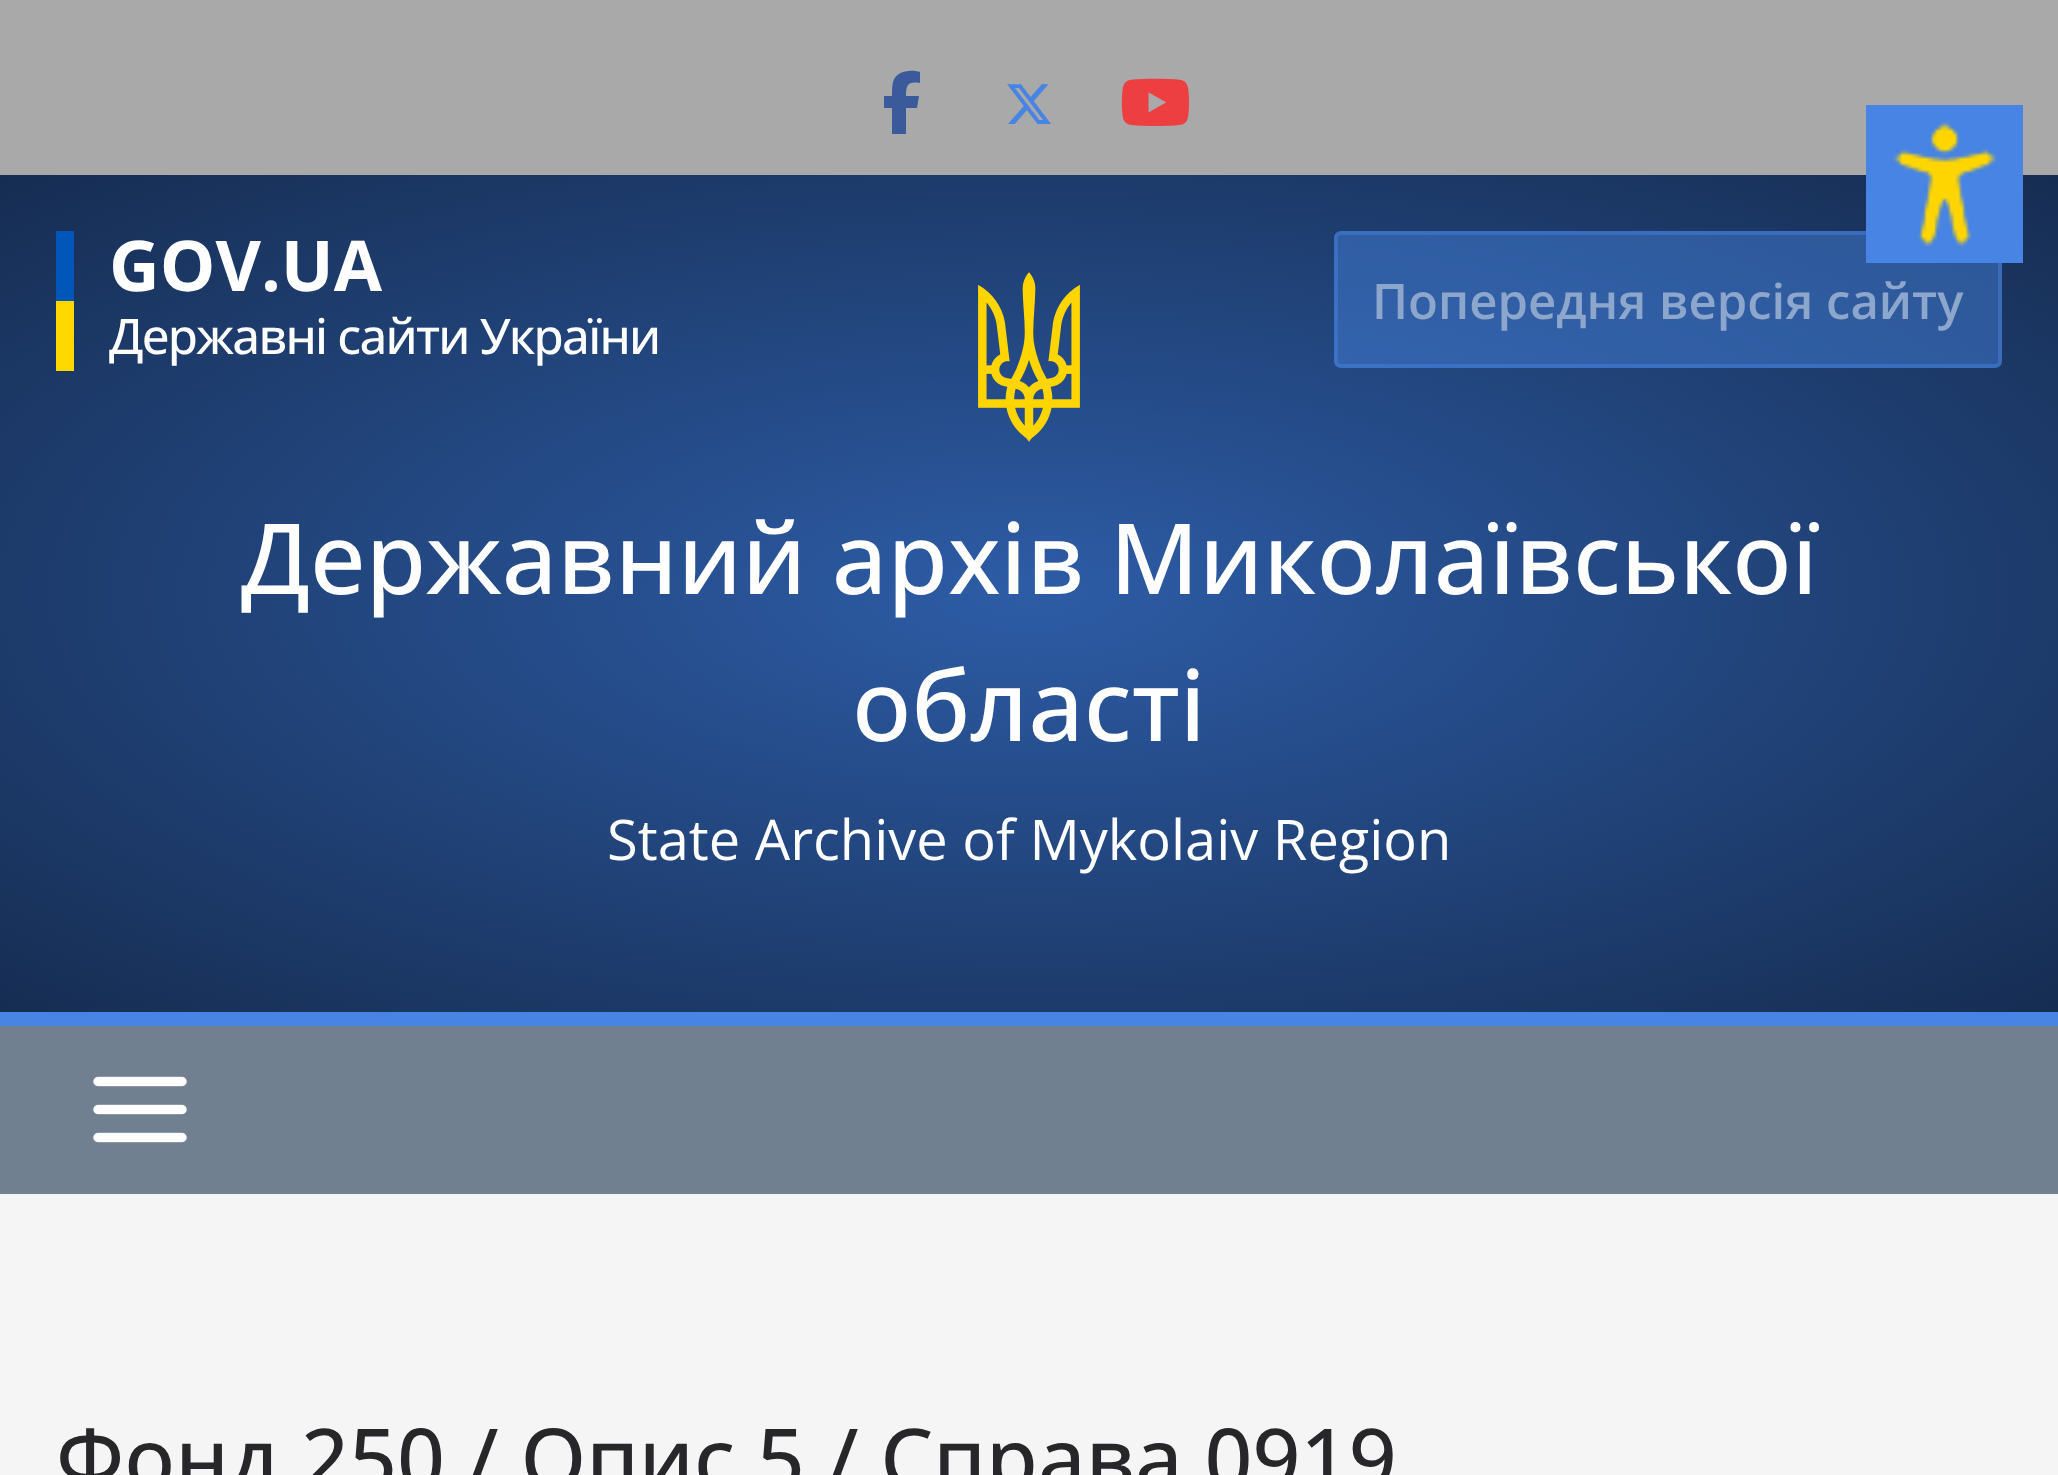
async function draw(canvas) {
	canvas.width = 2058;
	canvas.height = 1475;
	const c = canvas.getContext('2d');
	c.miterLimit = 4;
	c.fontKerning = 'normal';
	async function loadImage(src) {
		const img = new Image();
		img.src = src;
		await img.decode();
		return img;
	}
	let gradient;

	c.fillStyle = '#f5f5f5';
	c.fillRect(0, 0, 2058, 1475);
	c.fillStyle = '#a9a9a9';
	c.fillRect(0, 0, 2058, 175);
	gradient = c.createRadialGradient(1029, 1459.92, 0, 1029, 1459.92, 1455);
	gradient.addColorStop(0, '#2d5ca6');
	gradient.addColorStop(1, '#162d52');
	c.fillStyle = gradient;
	c.beginPath();
	c.rect(0, 175, 2058, 837);
	c.save();
	c.clip();
	c.scale(1, 591 / 1455);
	c.fillRect(0, 0, 2058, 3632);
	c.restore();
	c.fillStyle = '#4784e373';
	c.beginPath();
	c.roundRect(1334, 231, 668, 137, 7);
	c.fill();
	c.beginPath();
	c.roundRect(1336, 233, 664, 133, 5);
	c.strokeStyle = '#4784e373';
	c.lineWidth = 4;
	c.stroke();
	c.fillStyle = '#4784e3';
	c.fillRect(1866, 105, 157, 158);
	c.drawImage(await loadImage('img1.png'), 1892, 121, 105, 126);
	c.fillStyle = '#3b5a9b';
	c.beginPath();
	c.moveTo(892, 108);
	c.lineTo(892, 134);
	c.lineTo(892, 108);
	c.lineTo(892, 134);
	c.lineTo(906, 134);
	c.lineTo(906, 108);
	c.lineTo(917, 108);
	c.lineTo(919, 96);
	c.lineTo(906, 96);
	c.bezierCurveTo(906, 85, 908, 81, 920, 83);
	c.lineTo(920, 72);
	c.bezierCurveTo(910, 69, 896, 71, 893, 82);
	c.bezierCurveTo(892, 86, 892, 91, 892, 96);
	c.lineTo(884, 96);
	c.lineTo(884, 108);
	c.closePath();
	c.fill();
	c.drawImage(await loadImage('img2.png'), 1007, 84, 44, 40);
	c.drawImage(await loadImage('img3.png'), 1121, 78, 68, 48);
	c.fillStyle = '#0056b9';
	c.fillRect(56, 231, 18, 70);
	c.fillStyle = '#ffd800';
	c.fillRect(56, 301, 18, 70);
	c.font = 'bold 70px Open Sans';
	c.fillStyle = '#fff';
	c.fillText('GOV.UA', 109, 291);
	c.letterSpacing = '-1.75px';
	c.font = '500 49px Open Sans';
	c.fillText('Державні сайти України', 109, 354);
	c.letterSpacing = '0px';
	c.font = '600 49px Open Sans';
	c.fillStyle = '#8da6cc';
	c.fillText('Попередня версія сайту', 1372, 319);
	c.drawImage(await loadImage('img4.png'), 978, 272, 102, 170);
	c.font = '500 98px Open Sans';
	c.fillStyle = '#fff';
	c.fillText('Державний архів Миколаївської', 241, 594);
	c.fillText('області', 852, 741);
	c.font = '56px Open Sans';
	c.fillText('State Archive of Mykolaiv Region', 607, 860);
	c.fillStyle = '#708090';
	c.fillRect(0, 1026, 2058, 168);
	c.fillStyle = '#4784e3';
	c.fillRect(0, 1012, 2058, 14);
	c.drawImage(await loadImage('img5.png'), 93, 1076, 94, 67);
	c.font = '500 84px Open Sans';
	c.fillStyle = '#27272a';
	c.fillText('Фонд 250 / Опис 5 / Справа 0919', 56, 1489);
}

draw(document.querySelector('canvas'));
